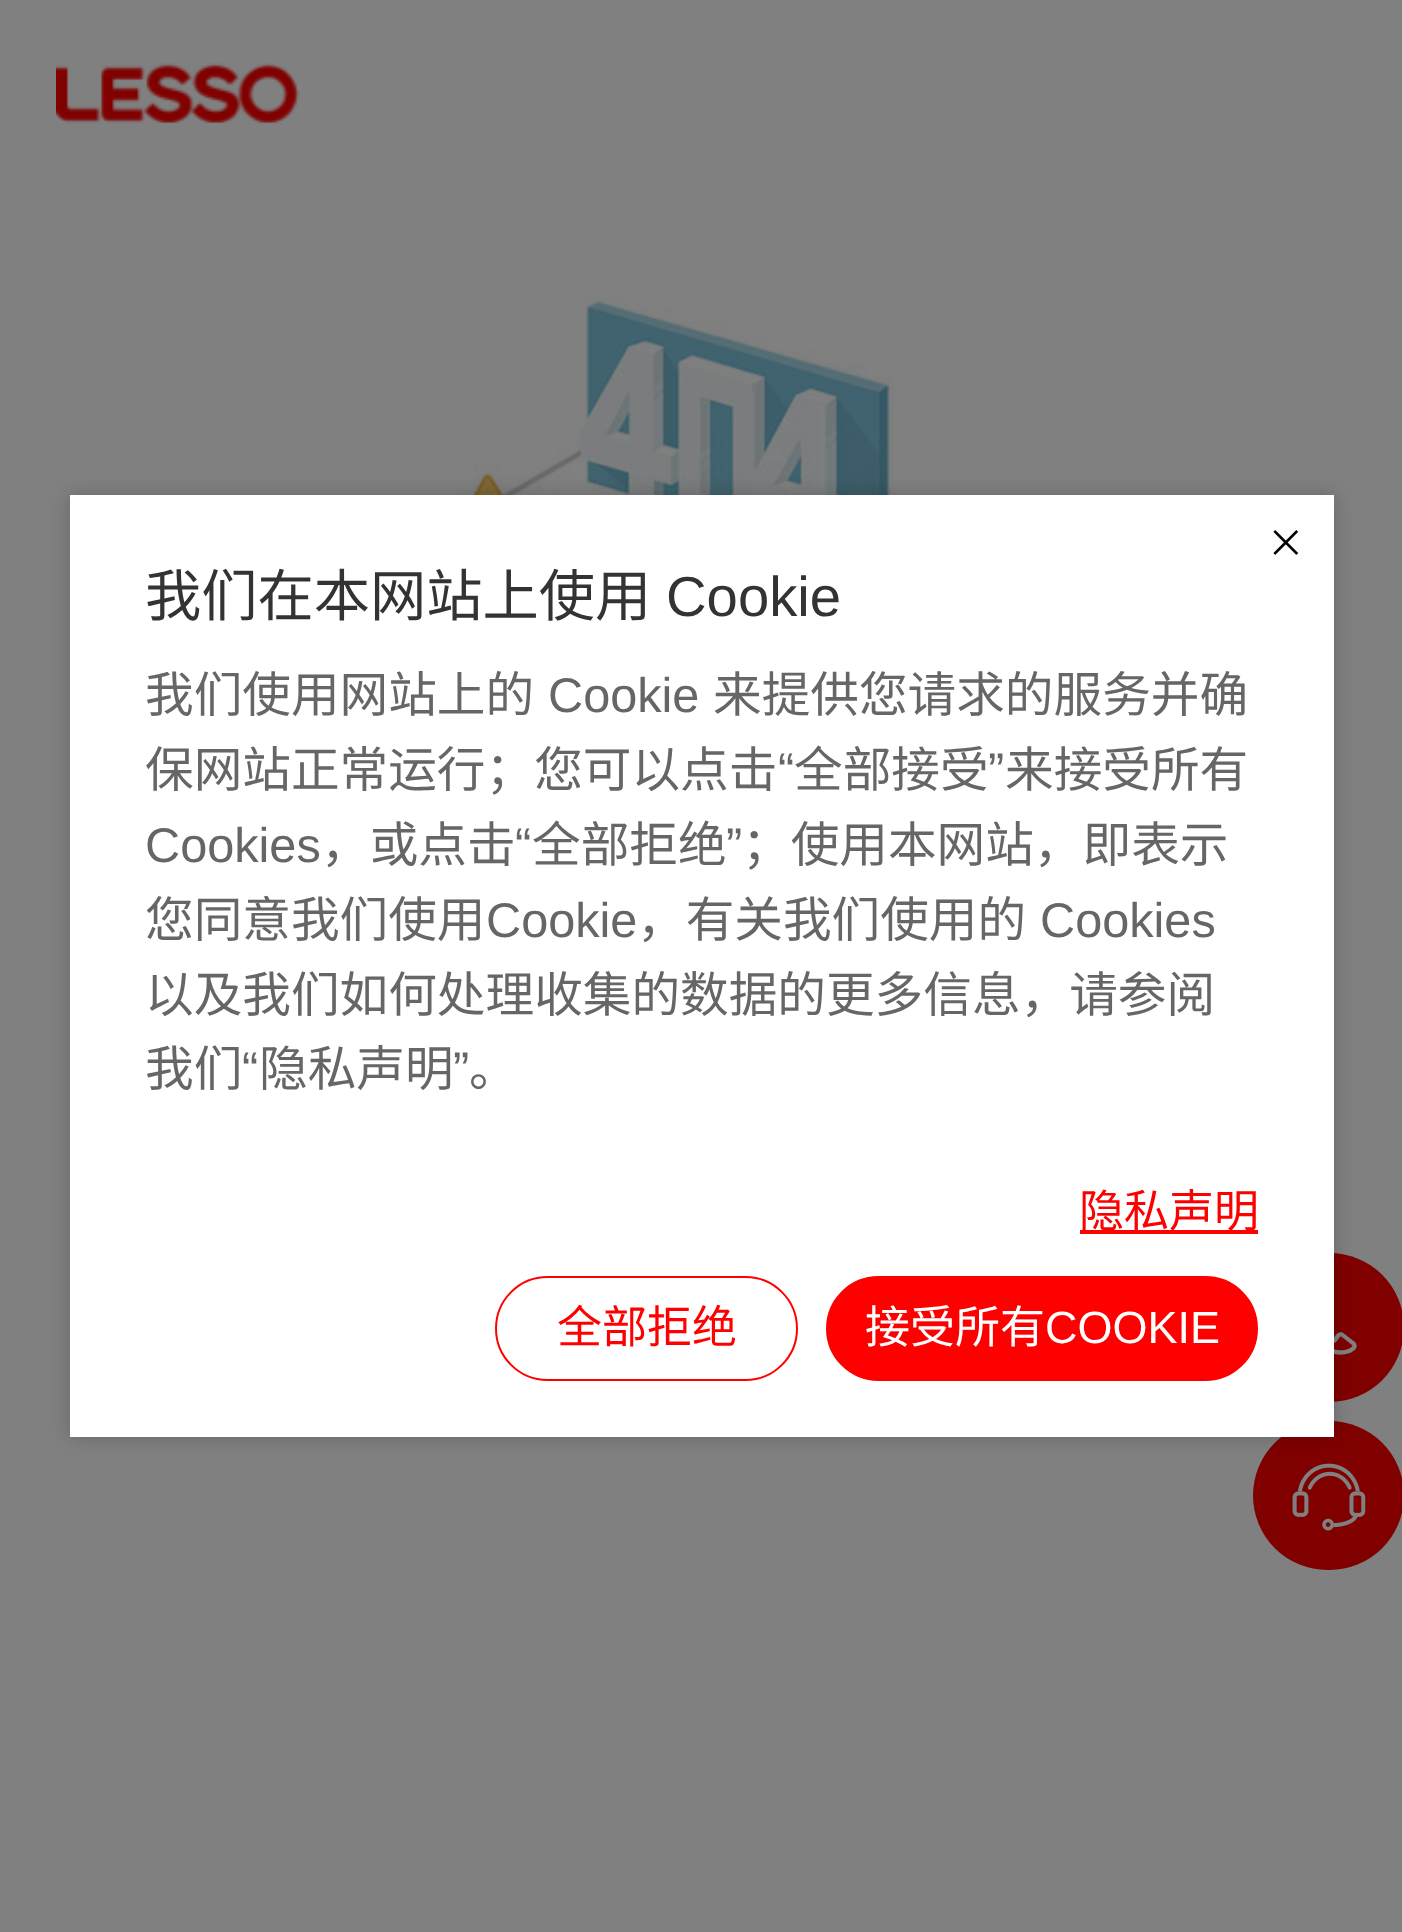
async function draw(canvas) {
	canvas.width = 1402;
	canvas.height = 1932;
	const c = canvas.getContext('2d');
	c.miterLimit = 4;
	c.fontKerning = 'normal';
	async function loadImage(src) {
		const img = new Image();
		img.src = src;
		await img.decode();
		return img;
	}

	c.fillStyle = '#808080';
	c.fillRect(0, 0, 1402, 1932);
	c.drawImage(await loadImage('img1.png'), 56, 63, 244, 61);
	c.drawImage(await loadImage('img2.png'), 408, 297, 692, 198);
	c.fillStyle = '#800000';
	c.beginPath();
	c.roundRect(1253, 1253, 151, 149, 74.5);
	c.fill();
	c.drawImage(await loadImage('img4.png'), 1334, 1332, 23, 23);
	c.beginPath();
	c.roundRect(1253, 1421, 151, 149, 74.5);
	c.fill();
	c.drawImage(await loadImage('img5.png'), 1292, 1463, 74, 68);
	c.fillStyle = '#00000033';
	c.filter = 'blur(9.5px)';
	c.beginPath();
	c.rect(70, 495, 1264, 942);
	c.fill();
	c.filter = 'none';
	c.fillStyle = '#fff';
	c.fillRect(70, 495, 1264, 942);
	c.drawImage(await loadImage('img3.png'), 1273, 530, 26, 25);
	c.font = '56.25px Noto Sans CJK SC';
	c.fillStyle = '#333';
	c.fillText('我们在本网站上使用', 145, 616);
	c.font = '56.25px Liberation Sans';
	c.fillText('Cookie', 666, 616);
	c.font = '48.65px Noto Sans CJK SC';
	c.fillStyle = '#666';
	c.fillText('我们使用网站上的', 145, 712);
	c.font = '48.65px Liberation Sans';
	c.fillText('Cookie', 548, 712);
	c.font = '48.65px Noto Sans CJK SC';
	c.fillText('来提供您请求的服务并确', 713, 712);
	c.fillText('保网站正常运行；您可以点击', 145, 787);
	c.font = '48.65px Liberation Sans';
	c.fillText('“', 778, 787);
	c.font = '48.65px Noto Sans CJK SC';
	c.fillText('全部接受', 794, 787);
	c.font = '48.65px Liberation Sans';
	c.fillText('”', 988, 787);
	c.font = '48.65px Noto Sans CJK SC';
	c.fillText('来接受所有', 1005, 787);
	c.font = '48.65px Liberation Sans';
	c.fillText('Cookies', 145, 862);
	c.font = '48.65px Noto Sans CJK SC';
	c.fillText('，或点击', 321, 862);
	c.font = '48.65px Liberation Sans';
	c.fillText('“', 515, 862);
	c.font = '48.65px Noto Sans CJK SC';
	c.fillText('全部拒绝', 532, 862);
	c.font = '48.65px Liberation Sans';
	c.fillText('”', 726, 862);
	c.font = '48.65px Noto Sans CJK SC';
	c.fillText('；使用本网站，即表示', 742, 862);
	c.fillText('您同意我们使用', 145, 937);
	c.font = '48.65px Liberation Sans';
	c.fillText('Cookie', 486, 937);
	c.font = '48.65px Noto Sans CJK SC';
	c.fillText('，有关我们使用的', 637, 937);
	c.font = '48.65px Liberation Sans';
	c.fillText('Cookies', 1040, 937);
	c.font = '48.65px Noto Sans CJK SC';
	c.fillText('以及我们如何处理收集的数据的更多信息，请参阅', 145, 1012);
	c.fillText('我们', 145, 1086);
	c.font = '48.65px Liberation Sans';
	c.fillText('“', 242, 1086);
	c.font = '48.65px Noto Sans CJK SC';
	c.fillText('隐私声明', 259, 1086);
	c.font = '48.65px Liberation Sans';
	c.fillText('”', 453, 1086);
	c.font = '48.65px Noto Sans CJK SC';
	c.fillText('。', 469, 1086);
	c.fillStyle = '#f00';
	c.fillRect(1080, 1230, 178, 4);
	c.font = '45px Noto Sans CJK SC';
	c.fillText('隐私声明', 1079, 1227);
	c.beginPath();
	c.roundRect(496, 1277, 301, 103, 51.5);
	c.strokeStyle = '#f00';
	c.lineWidth = 2;
	c.stroke();
	c.fillText('全部拒绝', 557, 1343);
	c.beginPath();
	c.roundRect(827, 1277, 430, 103, 51.5);
	c.fill();
	c.stroke();
	c.fillStyle = '#fff';
	c.fillText('接受所有', 865, 1343);
	c.font = '45px Liberation Sans';
	c.fillText('COOKIE', 1045, 1343);
}

draw(document.querySelector('canvas'));
